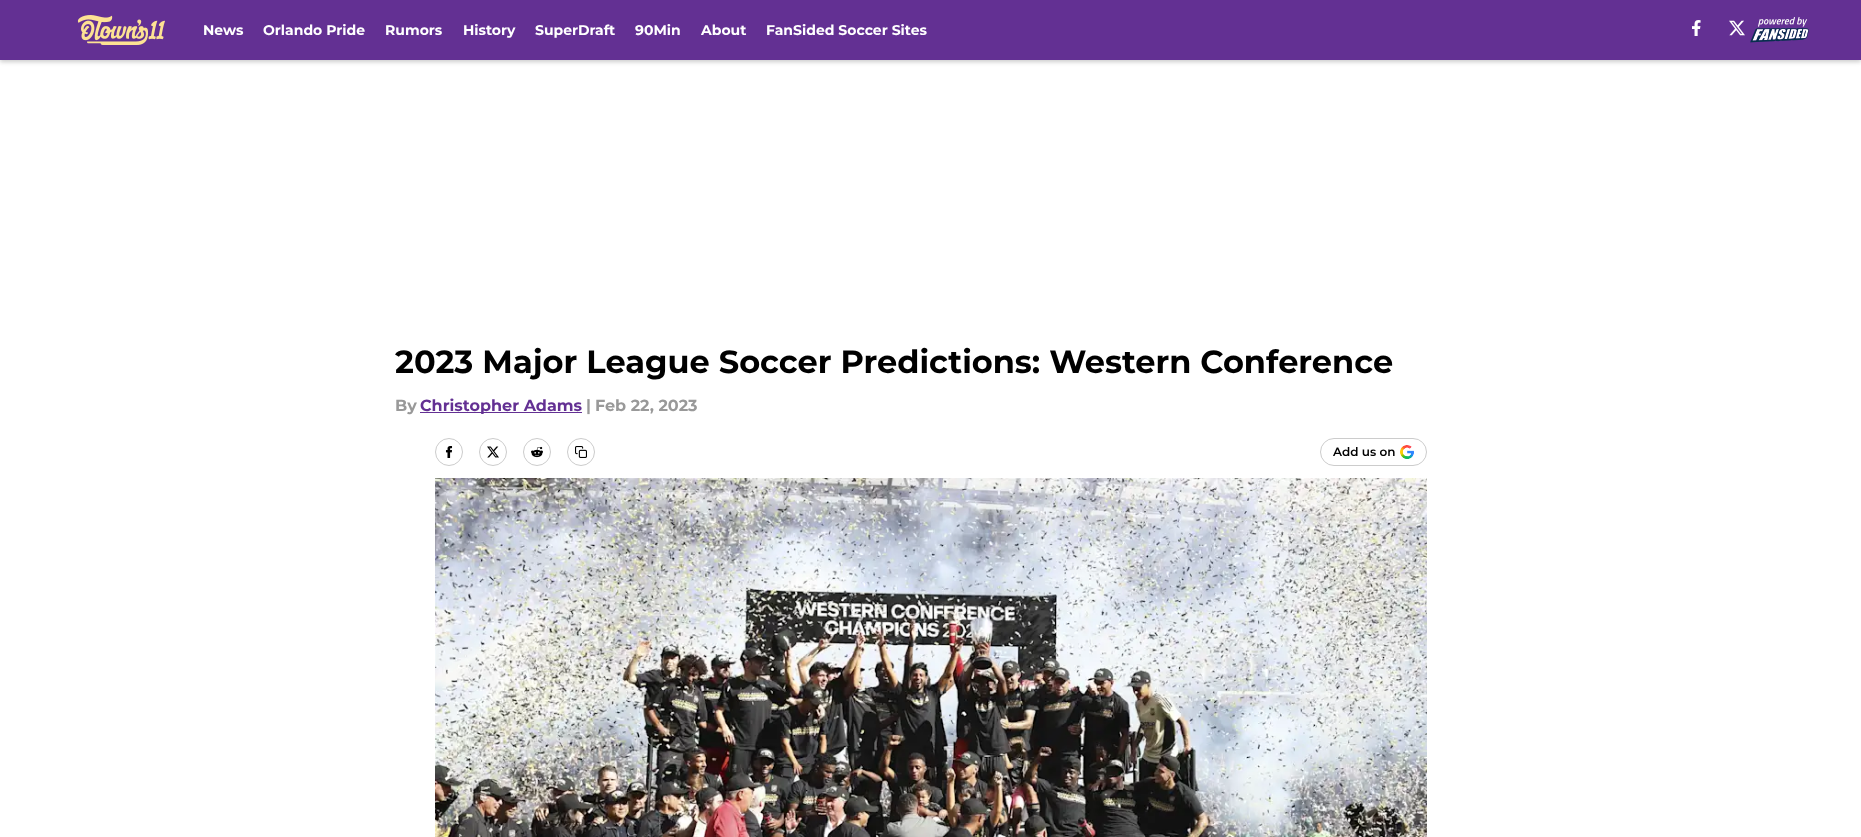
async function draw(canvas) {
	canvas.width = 1861;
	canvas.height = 837;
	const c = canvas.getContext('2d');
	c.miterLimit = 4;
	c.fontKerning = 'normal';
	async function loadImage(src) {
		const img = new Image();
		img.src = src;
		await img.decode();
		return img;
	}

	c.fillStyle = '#fff';
	c.fillRect(0, 0, 1861, 837);
	c.fillStyle = '#00000033';
	c.filter = 'blur(2px)';
	c.beginPath();
	c.rect(0, 2, 1861, 60);
	c.fill();
	c.filter = 'none';
	c.fillStyle = '#633093';
	c.fillRect(0, 0, 1861, 60);
	c.drawImage(await loadImage('img1.png'), 77, 15, 88, 30);
	c.font = '100 14px "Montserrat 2"';
	c.fillStyle = '#fff';
	for (const [text, x, y] of [
		['News', 203, 35],
		['Orlando Pride', 263, 35],
		['Rumors', 385, 35],
		['History', 463, 35],
		['SuperDraft', 535, 35],
		['90Min', 635, 35],
		['About', 701, 35],
		['FanSided Soccer Sites', 766, 35],
	]) {
		c.fillText(text, x, y);
	}
	c.drawImage(await loadImage('img2.png'), 1692, 20, 9, 16);
	c.drawImage(await loadImage('img3.png'), 1729, 20, 16, 16);
	c.drawImage(await loadImage('img4.png'), 1750, 17, 59, 26);
	c.font = '100 32px "Montserrat 2"';
	c.fillStyle = '#000';
	c.fillText('2023 Major League Soccer Predictions: Western Conference', 395, 373);
	c.font = '100 16px "Montserrat 2"';
	c.fillStyle = '#999';
	c.fillText('By', 395, 411);
	c.fillStyle = '#633093';
	c.fillRect(420, 412, 162, 1);
	c.fillText('Christopher Adams', 420, 411);
	c.fillStyle = '#999';
	c.fillText('|', 586, 411);
	c.fillText('Feb 22, 2023', 595, 411);
	c.beginPath();
	c.arc(449, 452, 13.5, 0, 2 * Math.PI);
	c.strokeStyle = '#ccc';
	c.stroke();
	c.drawImage(await loadImage('img5.png'), 445, 446, 8, 12);
	c.beginPath();
	c.arc(493, 452, 13.5, 0, 2 * Math.PI);
	c.stroke();
	c.drawImage(await loadImage('img6.png'), 487, 446, 12, 12);
	c.beginPath();
	c.arc(537, 452, 13.5, 0, 2 * Math.PI);
	c.stroke();
	c.drawImage(await loadImage('img7.png'), 531, 446, 12, 12);
	c.beginPath();
	c.arc(581, 452, 13.5, 0, 2 * Math.PI);
	c.stroke();
	c.drawImage(await loadImage('img8.png'), 575, 446, 12, 12);
	c.beginPath();
	c.roundRect(1320.5, 438.5, 106, 27, 13.5);
	c.stroke();
	c.font = '100 12px Montserrat';
	c.fillStyle = '#000';
	c.fillText('Add us on', 1333, 456);
	c.drawImage(await loadImage('img9.png'), 1400, 445, 14, 14);
	c.drawImage(await loadImage('img10.png'), 435, 478, 992, 359);
}

draw(document.querySelector('canvas'));
